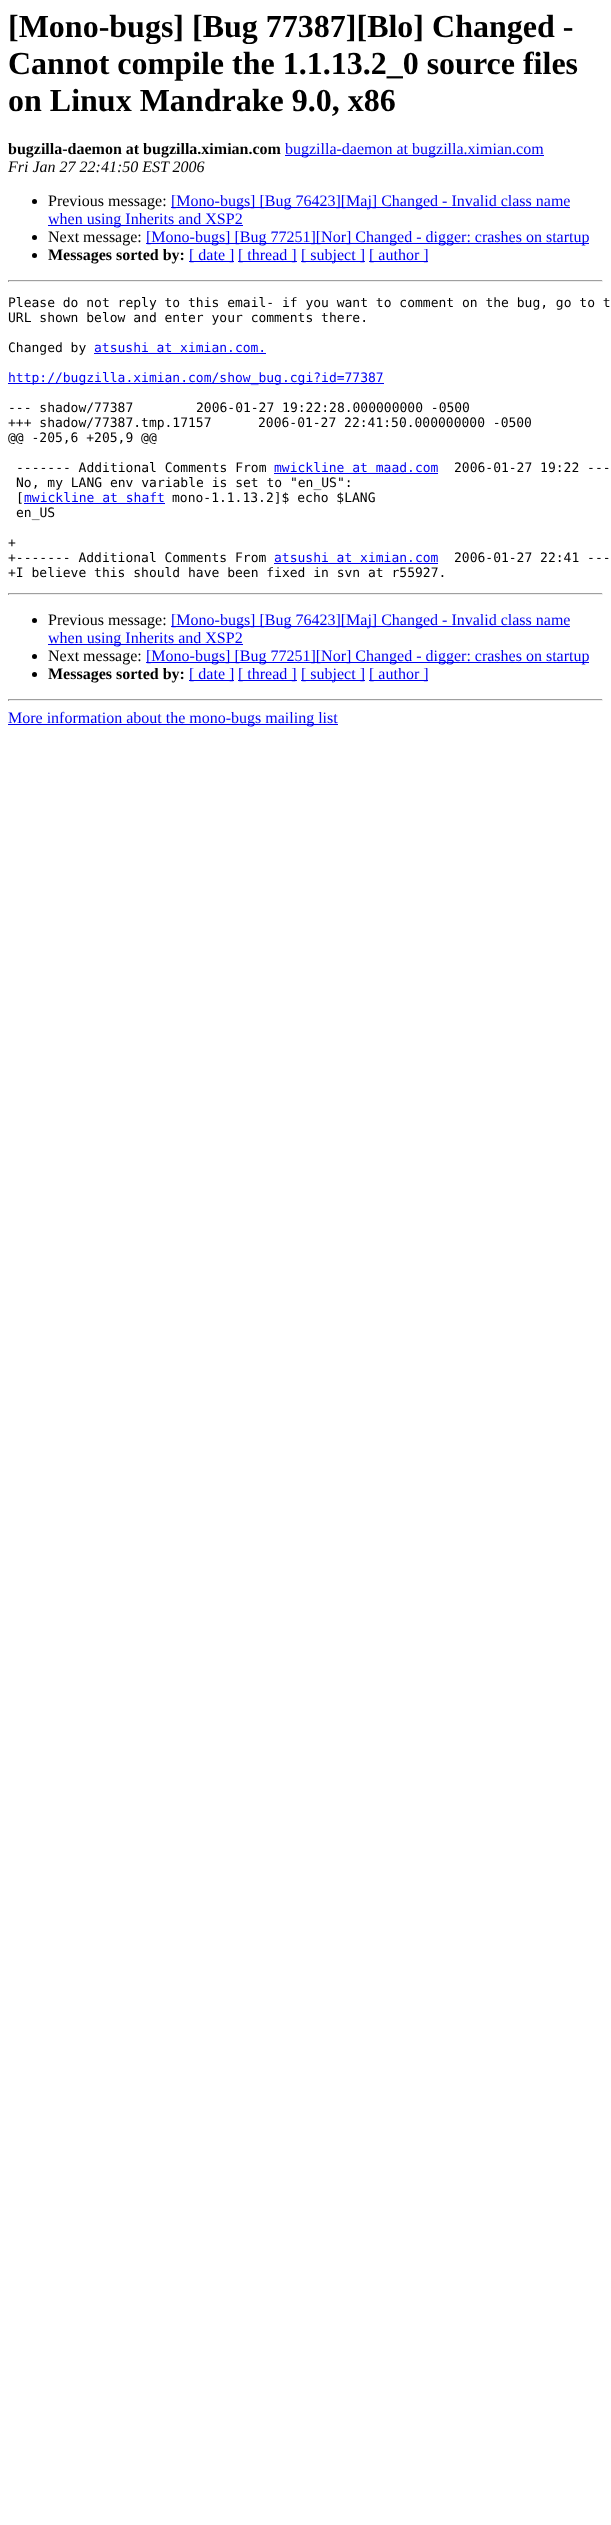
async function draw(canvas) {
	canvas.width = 611;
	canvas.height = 2525;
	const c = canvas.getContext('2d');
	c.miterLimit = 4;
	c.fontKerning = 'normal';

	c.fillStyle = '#fff';
	c.fillRect(0, 0, 611, 2525);
	c.font = 'bold 32px Liberation Serif';
	c.fillStyle = '#000';
	for (const [text, x, y] of [
		['[Mono-bugs] [Bug 77387][Blo] Changed -', 8, 37],
		['Cannot compile the 1.1.13.2_0 source files', 8, 74],
		['on Linux Mandrake 9.0, x86', 8, 111],
	]) {
		c.fillText(text, x, y);
	}
	c.font = 'bold 16px Liberation Serif';
	c.fillText('bugzilla-daemon at bugzilla.ximian.com', 8, 154);
	c.fillStyle = '#00e';
	c.fillRect(285, 155, 259, 1);
	c.font = '16px Liberation Serif';
	c.fillText('bugzilla-daemon at bugzilla.ximian.com', 285, 154);
	c.font = 'italic 16px Liberation Serif';
	c.fillStyle = '#000';
	c.fillText('Fri Jan 27 22:41:50 EST 2006', 8, 172);
	c.beginPath();
	c.arc(34.5, 201.5, 2.5, 0, 2 * Math.PI);
	c.fill();
	c.font = '16px Liberation Serif';
	c.fillText('Previous message:', 48, 206);
	c.fillStyle = '#00e';
	c.fillRect(171, 207, 399, 1);
	c.fillText('[Mono-bugs] [Bug 76423][Maj] Changed - Invalid class name', 171, 206);
	c.fillRect(48, 225, 195, 1);
	c.fillText('when using Inherits and XSP2', 48, 224);
	c.fillStyle = '#000';
	c.beginPath();
	c.arc(34.5, 237.5, 2.5, 0, 2 * Math.PI);
	c.fill();
	c.fillText('Next message:', 48, 242);
	c.fillStyle = '#00e';
	c.fillRect(146, 243, 443, 1);
	c.fillText('[Mono-bugs] [Bug 77251][Nor] Changed - digger: crashes on startup', 146, 242);
	c.fillStyle = '#000';
	c.beginPath();
	c.arc(34.5, 255.5, 2.5, 0, 2 * Math.PI);
	c.fill();
	c.font = 'bold 16px Liberation Serif';
	c.fillText('Messages sorted by:', 48, 260);
	c.fillStyle = '#00e';
	c.fillRect(189, 261, 45, 1);
	c.font = '16px Liberation Serif';
	c.fillText('[ date ]', 189, 260);
	c.fillRect(238, 261, 59, 1);
	c.fillText('[ thread ]', 238, 260);
	c.fillRect(301, 261, 64, 1);
	c.fillText('[ subject ]', 301, 260);
	c.fillRect(369, 261, 59, 1);
	c.fillText('[ author ]', 369, 260);
	for (const [x, y, w, h, color] of [
		[8, 280, 595, 1, '#9f9f9f'],
		[602, 280, 1, 2, '#eee'],
		[8, 281, 595, 1, '#eee'],
		[8, 280, 1, 2, '#9f9f9f'],
	]) {
		c.fillStyle = color;
		c.fillRect(x, y, w, h);
	}
	c.font = '13px DejaVu Sans Mono';
	c.fillStyle = '#000';
	for (const [text, x, y] of [
		['Please do not reply to this email- if you want to comment on the bug, go to t', 8, 307],
		['URL shown below and enter your comments there.', 8, 322],
		['Changed by', 8, 352],
	]) {
		c.fillText(text, x, y);
	}
	c.fillStyle = '#00e';
	c.fillText('atsushi at ximian.com.', 94, 352);
	c.fillRect(94, 353, 172, 1);
	c.fillRect(8, 383, 376, 1);
	c.fillText('http://bugzilla.ximian.com/show_bug.cgi?id=77387', 8, 382);
	c.fillStyle = '#000';
	for (const [text, x, y] of [
		['--- shadow/77387', 8, 412],
		['2006-01-27 19:22:28.000000000 -0500', 196, 412],
		['+++ shadow/77387.tmp.17157', 8, 427],
		['2006-01-27 22:41:50.000000000 -0500', 258, 427],
		['@@ -205,6 +205,9 @@', 8, 442],
		['------- Additional Comments From', 16, 472],
	]) {
		c.fillText(text, x, y);
	}
	c.fillStyle = '#00e';
	c.fillText('mwickline at maad.com', 274, 472);
	c.fillRect(274, 473, 164, 1);
	c.fillStyle = '#000';
	for (const [text, x, y] of [
		['2006-01-27 19:22 ---', 454, 472],
		['No, my LANG env variable is set to "en_US":', 16, 487],
		['[', 16, 502],
	]) {
		c.fillText(text, x, y);
	}
	c.fillStyle = '#00e';
	c.fillText('mwickline at shaft', 24, 502);
	c.fillRect(24, 503, 141, 1);
	c.fillStyle = '#000';
	for (const [text, x, y] of [
		['mono-1.1.13.2]$ echo $LANG', 172, 502],
		['en_US', 16, 517],
		['+', 8, 547],
		['+------- Additional Comments From', 8, 562],
	]) {
		c.fillText(text, x, y);
	}
	c.fillStyle = '#00e';
	c.fillText('atsushi at ximian.com', 274, 562);
	c.fillRect(274, 563, 164, 1);
	c.fillStyle = '#000';
	c.fillText('2006-01-27 22:41 ---', 454, 562);
	c.fillText('+I believe this should have been fixed in svn at r55927.', 8, 577);
	for (const [x, y, w, h, color] of [
		[8, 593, 595, 1, '#9f9f9f'],
		[602, 593, 1, 2, '#eee'],
		[8, 594, 595, 1, '#eee'],
		[8, 593, 1, 2, '#9f9f9f'],
	]) {
		c.fillStyle = color;
		c.fillRect(x, y, w, h);
	}
	c.fillStyle = '#000';
	c.beginPath();
	c.arc(34.5, 620.5, 2.5, 0, 2 * Math.PI);
	c.fill();
	c.font = '16px Liberation Serif';
	c.fillText('Previous message:', 48, 625);
	c.fillStyle = '#00e';
	c.fillRect(171, 626, 399, 1);
	c.fillText('[Mono-bugs] [Bug 76423][Maj] Changed - Invalid class name', 171, 625);
	c.fillRect(48, 644, 195, 1);
	c.fillText('when using Inherits and XSP2', 48, 643);
	c.fillStyle = '#000';
	c.beginPath();
	c.arc(34.5, 656.5, 2.5, 0, 2 * Math.PI);
	c.fill();
	c.fillText('Next message:', 48, 661);
	c.fillStyle = '#00e';
	c.fillRect(146, 662, 443, 1);
	c.fillText('[Mono-bugs] [Bug 77251][Nor] Changed - digger: crashes on startup', 146, 661);
	c.fillStyle = '#000';
	c.beginPath();
	c.arc(34.5, 674.5, 2.5, 0, 2 * Math.PI);
	c.fill();
	c.font = 'bold 16px Liberation Serif';
	c.fillText('Messages sorted by:', 48, 679);
	c.fillStyle = '#00e';
	c.fillRect(189, 680, 45, 1);
	c.font = '16px Liberation Serif';
	c.fillText('[ date ]', 189, 679);
	c.fillRect(238, 680, 59, 1);
	c.fillText('[ thread ]', 238, 679);
	c.fillRect(301, 680, 64, 1);
	c.fillText('[ subject ]', 301, 679);
	c.fillRect(369, 680, 59, 1);
	c.fillText('[ author ]', 369, 679);
	for (const [x, y, w, h, color] of [
		[8, 699, 595, 1, '#9f9f9f'],
		[602, 699, 1, 2, '#eee'],
		[8, 700, 595, 1, '#eee'],
		[8, 699, 1, 2, '#9f9f9f'],
		[8, 724, 330, 1, '#00e'],
	]) {
		c.fillStyle = color;
		c.fillRect(x, y, w, h);
	}
	c.fillText('More information about the mono-bugs mailing list', 8, 723);
}

draw(document.querySelector('canvas'));
